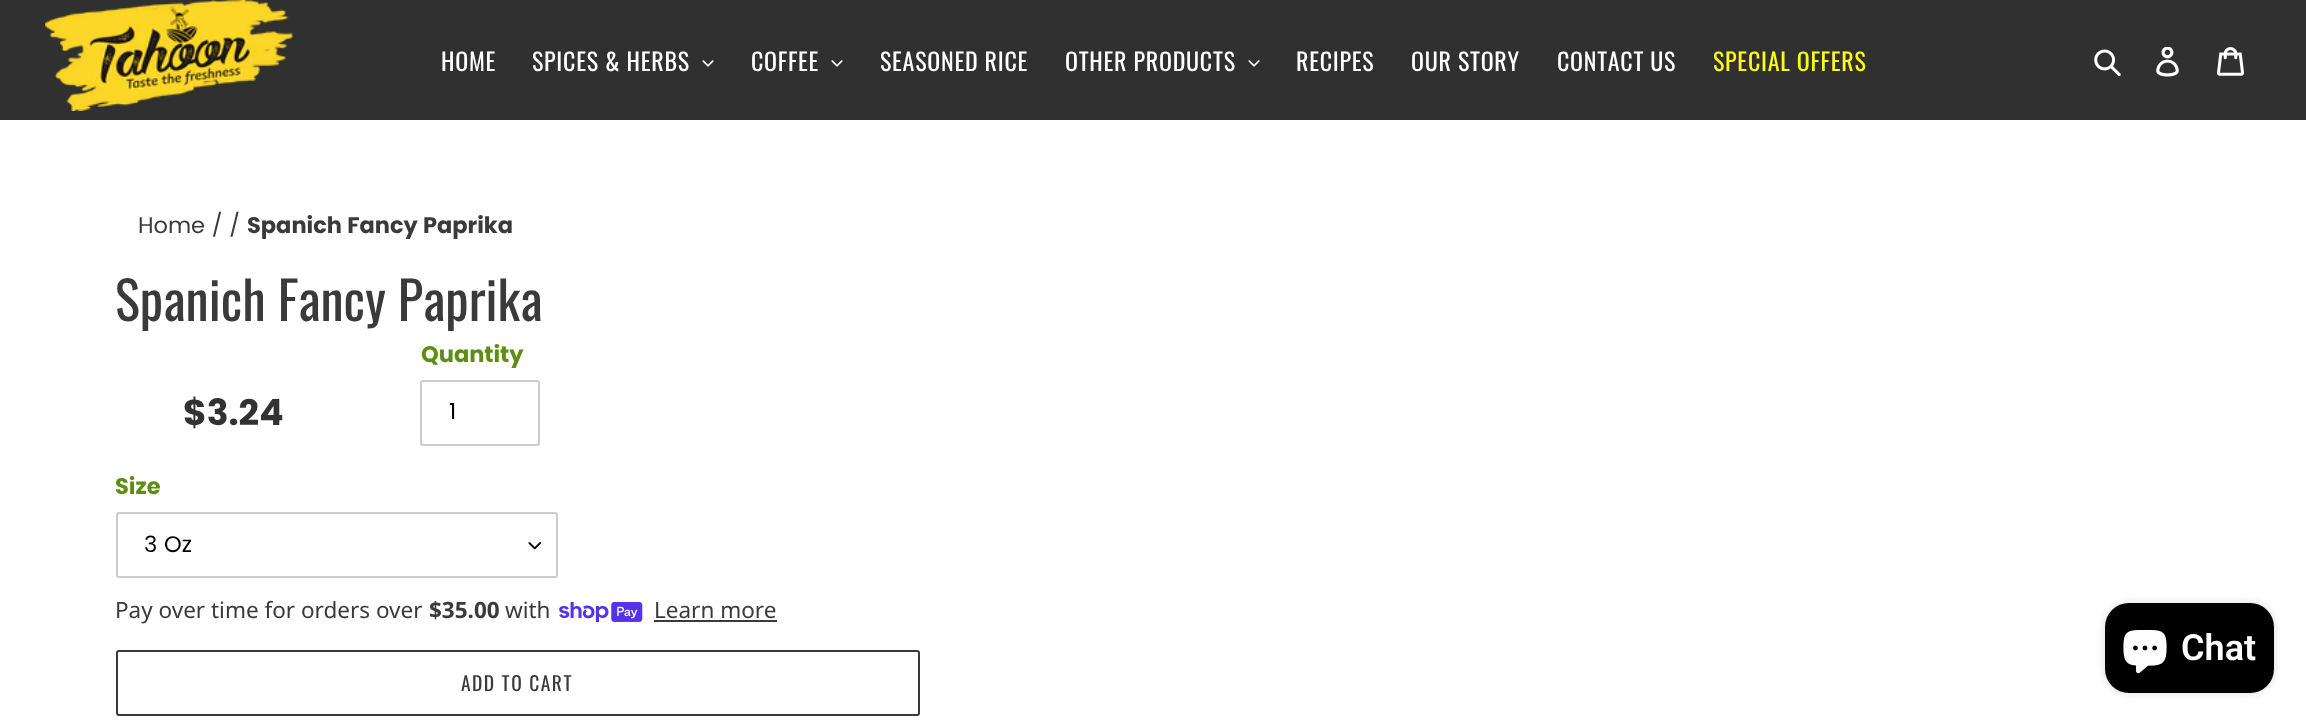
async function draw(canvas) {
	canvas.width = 2306;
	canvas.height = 724;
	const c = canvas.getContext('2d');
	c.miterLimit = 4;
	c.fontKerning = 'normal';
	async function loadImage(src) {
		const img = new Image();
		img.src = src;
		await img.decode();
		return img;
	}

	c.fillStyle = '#fff';
	c.fillRect(0, 0, 2306, 724);
	c.fillStyle = '#303030';
	c.fillRect(0, 0, 2306, 120);
	c.drawImage(await loadImage('img1.png'), 45, 0, 248, 111);
	c.letterSpacing = '0.75px';
	c.font = '24px Oswald';
	c.fillStyle = '#fff';
	c.fillText('HOME', 441, 71);
	c.fillText('SPICES & HERBS', 532, 71);
	c.drawImage(await loadImage('img2.png'), 702, 60, 12, 7);
	c.fillText('COFFEE', 751, 71);
	c.drawImage(await loadImage('img2.png'), 831, 60, 12, 7);
	c.fillText('SEASONED RICE', 880, 71);
	c.fillText('OTHER PRODUCTS', 1065, 71);
	c.drawImage(await loadImage('img2.png'), 1248, 60, 12, 7);
	for (const [text, x, y] of [
		['RECIPES', 1296, 71],
		['OUR STORY', 1411, 71],
		['CONTACT US', 1557, 71],
	]) {
		c.fillText(text, x, y);
	}
	c.fillStyle = '#fdfa18';
	c.fillText('SPECIAL OFFERS', 1713, 71);
	c.drawImage(await loadImage('img3.png'), 2094, 49, 27, 28);
	c.drawImage(await loadImage('img4.png'), 2156, 47, 23, 30);
	c.drawImage(await loadImage('img5.png'), 2217, 47, 27, 29);
	c.letterSpacing = '0px';
	c.font = '22.5px Poppins';
	c.fillStyle = '#3a3a3a';
	c.fillText('Home / /', 138, 233);
	c.font = 'bold 22.5px Poppins';
	c.fillText('Spanich Fancy Paprika', 247, 233);
	c.font = '52.5px Oswald';
	c.fillText('Spanich Fancy Paprika', 115, 321);
	c.font = 'bold 36px Poppins';
	c.fillStyle = '#333232';
	c.fillText('$3.24', 183, 425);
	c.font = 'bold 22.5px Poppins';
	c.fillStyle = '#5d8e11';
	c.fillText('Quantity', 421, 362);
	c.beginPath();
	c.roundRect(421, 381, 118, 64, 2);
	c.strokeStyle = '#ccc';
	c.lineWidth = 2;
	c.stroke();
	c.font = '22.5px Poppins';
	c.fillStyle = '#000';
	c.fillText('1', 449, 419);
	c.font = 'bold 22.5px Poppins';
	c.fillStyle = '#5d8e11';
	c.fillText('Size', 115, 494);
	c.drawImage(await loadImage('img6.png'), 528, 542, 13, 8);
	c.beginPath();
	c.roundRect(117, 513, 440, 64, 2);
	c.stroke();
	c.font = '22.5px Poppins';
	c.fillStyle = '#000';
	c.fillText('3 Oz', 144, 552);
	c.font = '22.5px Noto Sans';
	c.fillStyle = '#3a3a3a';
	c.fillText('Pay over time for orders over', 115, 618);
	c.font = 'bold 22.5px Noto Sans';
	c.fillText('$35.00', 429, 618);
	c.font = '22.5px Noto Sans';
	c.fillText('with', 505, 618);
	c.drawImage(await loadImage('img7.png'), 559, 602, 84, 21);
	c.fillText('Learn more', 654, 618);
	c.fillRect(654, 620, 123, 2);
	c.beginPath();
	c.roundRect(117, 651, 802, 64, 2);
	c.strokeStyle = '#3a3a3a';
	c.stroke();
	c.letterSpacing = '1.5px';
	c.font = '19.5px Oswald';
	c.fillText('ADD TO CART', 461, 691);
	c.fillStyle = '#00000026';
	c.filter = 'blur(4px)';
	c.beginPath();
	c.roundRect(2105, 603, 169, 90, 24);
	c.fill();
	c.filter = 'none';
	c.fillStyle = '#000';
	c.beginPath();
	c.roundRect(2105, 603, 169, 90, 24);
	c.fill();
	c.drawImage(await loadImage('img8.png'), 2123, 630, 44, 44);
	c.letterSpacing = '0px';
	c.font = '600 36px Roboto';
	c.fillStyle = '#fff';
	c.fillText('Chat', 2181, 660);
}

draw(document.querySelector('canvas'));
